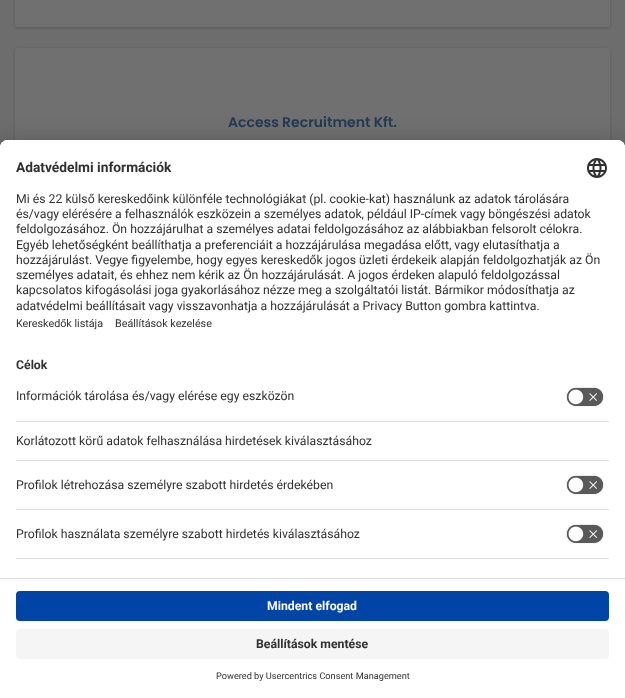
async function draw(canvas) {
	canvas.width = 625;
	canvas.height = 698;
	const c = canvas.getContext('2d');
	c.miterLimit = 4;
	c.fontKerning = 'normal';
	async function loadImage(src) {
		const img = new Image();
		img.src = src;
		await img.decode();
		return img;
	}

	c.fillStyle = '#6d6d6d';
	c.fillRect(0, 0, 625, 698);
	c.fillStyle = '#24242440';
	c.filter = 'blur(1.5px)';
	c.beginPath();
	c.roundRect(15, -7, 595, 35, 2);
	c.fill();
	c.filter = 'none';
	c.fillStyle = '#707070';
	c.beginPath();
	c.roundRect(15, -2, 595, 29, 2);
	c.fill();
	c.fillStyle = '#24242440';
	c.filter = 'blur(1.5px)';
	c.beginPath();
	c.roundRect(15, 49, 595, 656, 2);
	c.fill();
	c.filter = 'none';
	c.fillStyle = '#707070';
	c.beginPath();
	c.roundRect(15, 48, 595, 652, 2);
	c.fill();
	c.font = '600 14px Poppins';
	c.fillStyle = '#243954';
	c.fillText('Access Recruitment Kft.', 228, 127);
	c.fillStyle = '#0000004d';
	c.filter = 'blur(14px)';
	c.beginPath();
	c.roundRect(0, 160, 625, 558, 8);
	c.fill();
	c.filter = 'none';
	c.fillStyle = '#00000038';
	c.filter = 'blur(13px)';
	c.beginPath();
	c.roundRect(0, 145, 625, 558, 8);
	c.fill();
	c.filter = 'none';
	c.fillStyle = '#fff';
	c.beginPath();
	c.roundRect(0, 140, 625, 558, [8, 8, 0, 0]);
	c.fill();
	c.beginPath();
	c.roundRect(0, 140, 625, 438, [8, 8, 0, 0]);
	c.fill();
	c.beginPath();
	c.roundRect(0, 140, 625, 206, [8, 8, 0, 0]);
	c.fill();
	c.font = 'bold 13.75px Roboto';
	c.fillStyle = '#303030';
	c.fillText('Adatvédelmi információk', 16, 172);
	c.drawImage(await loadImage('img1.png'), 587, 158, 20, 20);
	c.font = '12.25px Roboto';
	for (const [text, x, y] of [
		['Mi és 22 külső kereskedőink különféle technológiákat (pl. cookie-kat) használunk az adatok tárolására', 16, 203],
		['és/vagy elérésére a felhasználók eszközein a személyes adatok, például IP-címek vagy böngészési adatok', 16, 218],
		['feldolgozásához. Ön hozzájárulhat a személyes adatai feldolgozásához az alábbiakban felsorolt célokra.', 16, 233],
		['Egyéb lehetőségként beállíthatja a preferenciáit a hozzájárulása megadása előtt, vagy elutasíthatja a', 16, 249],
		['hozzájárulást. Vegye figyelembe, hogy egyes kereskedők jogos üzleti érdekeik alapján feldolgozhatják az Ön', 16, 264],
		['személyes adatait, és ehhez nem kérik az Ön hozzájárulását. A jogos érdeken alapuló feldolgozással', 16, 279],
		['kapcsolatos kifogásolási joga gyakorlásához nézze meg a szolgáltatói listát. Bármikor módosíthatja az', 16, 294],
		['adatvédelmi beállításait vagy visszavonhatja a hozzájárulását a Privacy Button gombra kattintva.', 16, 310],
	]) {
		c.fillText(text, x, y);
	}
	c.font = '10.75px Roboto';
	c.fillText('Kereskedők listája', 16, 327);
	c.fillText('Beállítások kezelése', 115, 327);
	c.font = 'bold 12.25px Roboto';
	c.fillText('Célok', 16, 369);
	c.fillStyle = '#ddd';
	c.fillRect(16, 421, 593, 1);
	c.font = '12.25px Roboto';
	c.fillStyle = '#303030';
	c.fillText('Információk tárolása és/vagy elérése egy eszközön', 16, 400);
	c.drawImage(await loadImage('img2.png'), 566, 387, 38, 20);
	c.fillStyle = '#ddd';
	c.fillRect(16, 460, 593, 1);
	c.fillStyle = '#303030';
	c.fillText('Korlátozott körű adatok felhasználása hirdetések kiválasztásához', 16, 445);
	c.fillStyle = '#ddd';
	c.fillRect(16, 509, 593, 1);
	c.fillStyle = '#303030';
	c.fillText('Profilok létrehozása személyre szabott hirdetés érdekében', 16, 489);
	c.drawImage(await loadImage('img2.png'), 566, 475, 38, 20);
	c.fillStyle = '#ddd';
	c.fillRect(16, 558, 593, 1);
	c.fillStyle = '#303030';
	c.fillText('Profilok használata személyre szabott hirdetés kiválasztásához', 16, 538);
	c.drawImage(await loadImage('img2.png'), 566, 524, 38, 20);
	c.fillStyle = '#ddd';
	c.fillRect(0, 578, 625, 1);
	c.fillStyle = '#0045a5';
	c.beginPath();
	c.roundRect(16, 591, 593, 30, 4);
	c.fill();
	c.font = 'bold 12.25px Roboto';
	c.fillStyle = '#fafafa';
	c.fillText('Mindent elfogad', 267, 610);
	c.fillStyle = '#f5f5f5';
	c.beginPath();
	c.roundRect(16, 629, 593, 30, 4);
	c.fill();
	c.fillStyle = '#303030';
	c.fillText('Beállítások mentése', 256, 648);
	c.font = '9.2px Roboto';
	c.fillText('Powered by Usercentrics Consent Management', 216, 679);
}

draw(document.querySelector('canvas'));
